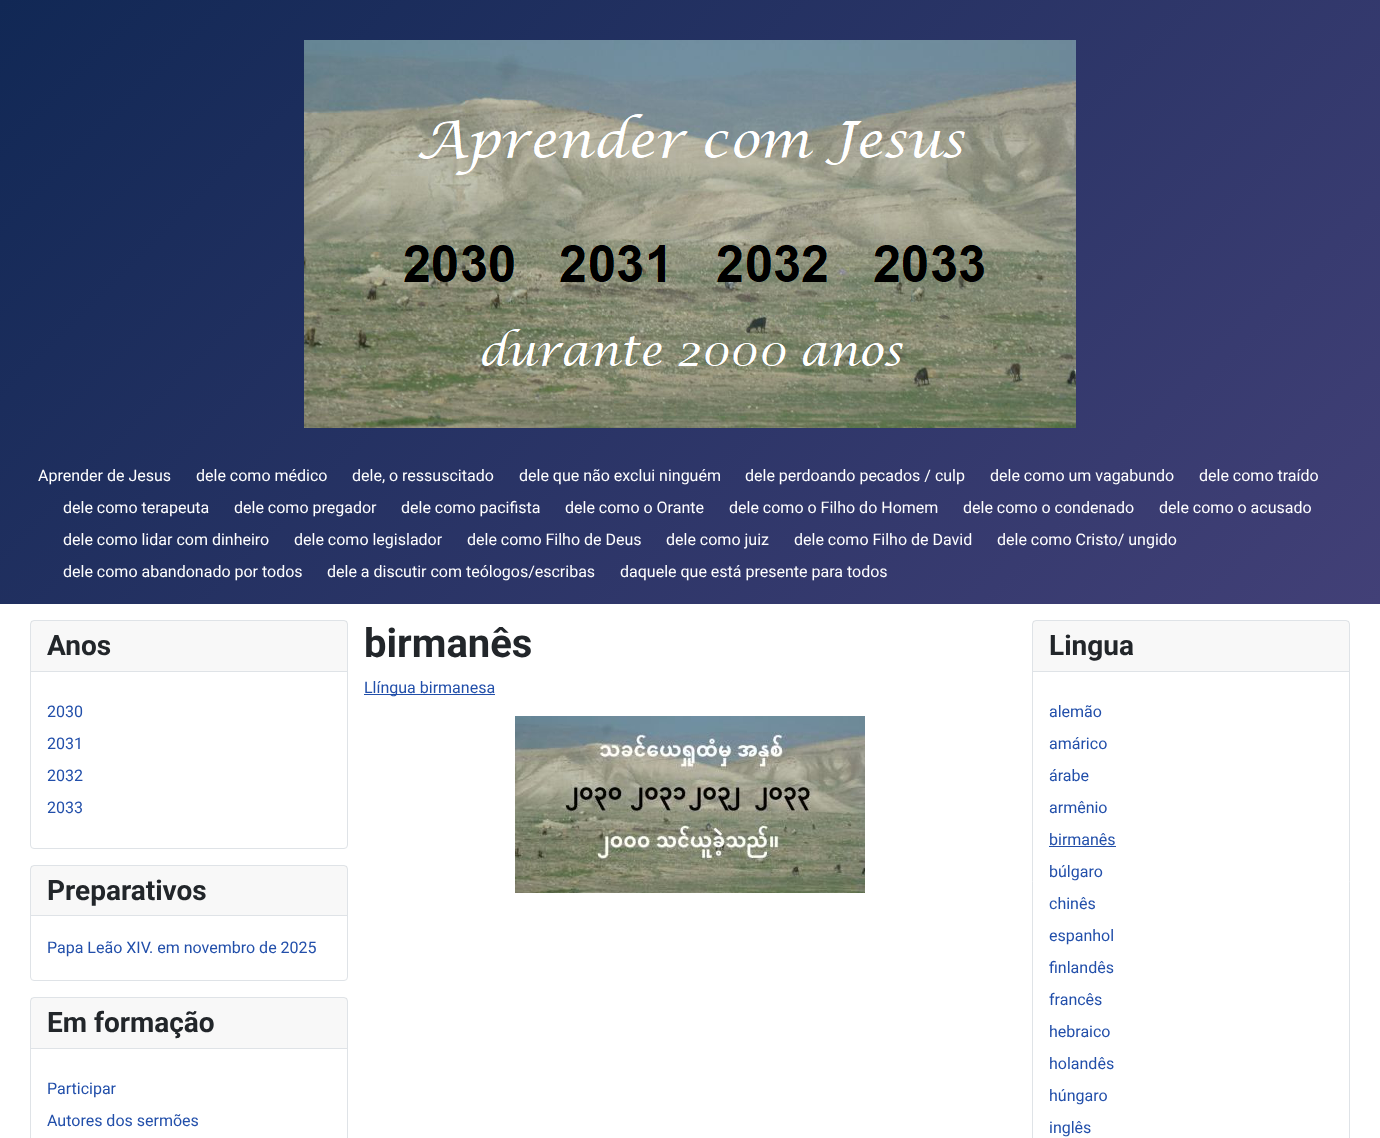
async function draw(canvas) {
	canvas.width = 1380;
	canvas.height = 1138;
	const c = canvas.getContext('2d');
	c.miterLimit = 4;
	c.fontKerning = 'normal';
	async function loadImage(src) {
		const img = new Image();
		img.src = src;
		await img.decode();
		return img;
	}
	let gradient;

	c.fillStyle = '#fff';
	c.fillRect(0, 0, 1380, 1138);
	gradient = c.createLinearGradient(194, -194, 1186, 798);
	gradient.addColorStop(0, '#112855');
	gradient.addColorStop(1, '#424077');
	c.fillStyle = gradient;
	c.fillRect(0, 0, 1380, 604);
	c.drawImage(await loadImage('img1.png'), 304, 40, 772, 388);
	c.font = '16px Roboto';
	c.fillStyle = '#fff';
	for (const [text, x, y] of [
		['Aprender de Jesus', 38, 481],
		['dele como médico', 196, 481],
		['dele, o ressuscitado', 352, 481],
		['dele que não exclui ninguém', 519, 481],
		['dele perdoando pecados / culp', 745, 481],
		['dele como um vagabundo', 990, 481],
		['dele como traído', 1199, 481],
		['dele como terapeuta', 63, 513],
		['dele como pregador', 234, 513],
		['dele como pacifista', 401, 513],
		['dele como o Orante', 565, 513],
		['dele como o Filho do Homem', 729, 513],
		['dele como o condenado', 963, 513],
		['dele como o acusado', 1159, 513],
		['dele como lidar com dinheiro', 63, 545],
		['dele como legislador', 294, 545],
		['dele como Filho de Deus', 467, 545],
		['dele como juiz', 666, 545],
		['dele como Filho de David', 794, 545],
		['dele como Cristo/ ungido', 997, 545],
		['dele como abandonado por todos', 63, 577],
		['dele a discutir com teólogos/escribas', 327, 577],
		['daquele que está presente para todos', 620, 577],
	]) {
		c.fillText(text, x, y);
	}
	c.beginPath();
	c.roundRect(30.5, 620.5, 317, 228, 3.5);
	c.strokeStyle = '#dfe3e7';
	c.stroke();
	c.fillStyle = '#22262a08';
	c.fillRect(31, 621, 316, 50);
	c.fillStyle = '#dfe3e7';
	c.fillRect(31, 671, 316, 1);
	c.font = 'bold 28px Roboto';
	c.fillStyle = '#22262a';
	c.fillText('Anos', 47, 655);
	c.font = '16px Roboto';
	c.fillStyle = '#224faa';
	for (const [text, x, y] of [
		['2030', 47, 717],
		['2031', 47, 749],
		['2032', 47, 781],
		['2033', 47, 813],
	]) {
		c.fillText(text, x, y);
	}
	c.beginPath();
	c.roundRect(30.5, 865.5, 317, 115, 3.5);
	c.stroke();
	c.fillStyle = '#22262a08';
	c.fillRect(31, 866, 316, 49);
	c.fillStyle = '#dfe3e7';
	c.fillRect(31, 915, 316, 1);
	c.font = 'bold 28px Roboto';
	c.fillStyle = '#22262a';
	c.fillText('Preparativos', 47, 900);
	c.font = '16px Roboto';
	c.fillStyle = '#224faa';
	c.fillText('Papa Leão XIV. em novembro de 2025', 47, 953);
	c.beginPath();
	c.roundRect(30.5, 997.5, 317, 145, 3.5);
	c.stroke();
	c.fillStyle = '#22262a08';
	c.fillRect(31, 998, 316, 50);
	c.fillStyle = '#dfe3e7';
	c.fillRect(31, 1048, 316, 1);
	c.font = 'bold 28px Roboto';
	c.fillStyle = '#22262a';
	c.fillText('Em formação', 47, 1032);
	c.font = '16px Roboto';
	c.fillStyle = '#224faa';
	c.fillText('Participar', 47, 1094);
	c.fillText('Autores dos sermões', 47, 1126);
	c.font = 'bold 40px Roboto';
	c.fillStyle = '#22262a';
	c.fillText('birmanês', 364, 657);
	c.fillStyle = '#224faa';
	c.fillRect(364, 694, 131, 1);
	c.font = '16px Roboto';
	c.fillText('Llíngua birmanesa', 364, 693);
	c.drawImage(await loadImage('img2.png'), 515, 716, 350, 177);
	c.beginPath();
	c.roundRect(1032.5, 620.5, 317, 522, 3.5);
	c.stroke();
	c.fillStyle = '#22262a08';
	c.fillRect(1033, 621, 316, 50);
	c.fillStyle = '#dfe3e7';
	c.fillRect(1033, 671, 316, 1);
	c.font = 'bold 28px Roboto';
	c.fillStyle = '#22262a';
	c.fillText('Lingua', 1049, 655);
	c.font = '16px Roboto';
	c.fillStyle = '#224faa';
	for (const [text, x, y] of [
		['alemão', 1049, 717],
		['amárico', 1049, 749],
		['árabe', 1049, 781],
		['armênio', 1049, 813],
		['birmanês', 1049, 845],
	]) {
		c.fillText(text, x, y);
	}
	c.fillRect(1049, 846, 67, 1);
	for (const [text, x, y] of [
		['búlgaro', 1049, 877],
		['chinês', 1049, 909],
		['espanhol', 1049, 941],
		['finlandês', 1049, 973],
		['francês', 1049, 1005],
		['hebraico', 1049, 1037],
		['holandês', 1049, 1069],
		['húngaro', 1049, 1101],
		['inglês', 1049, 1133],
	]) {
		c.fillText(text, x, y);
	}
}

draw(document.querySelector('canvas'));
